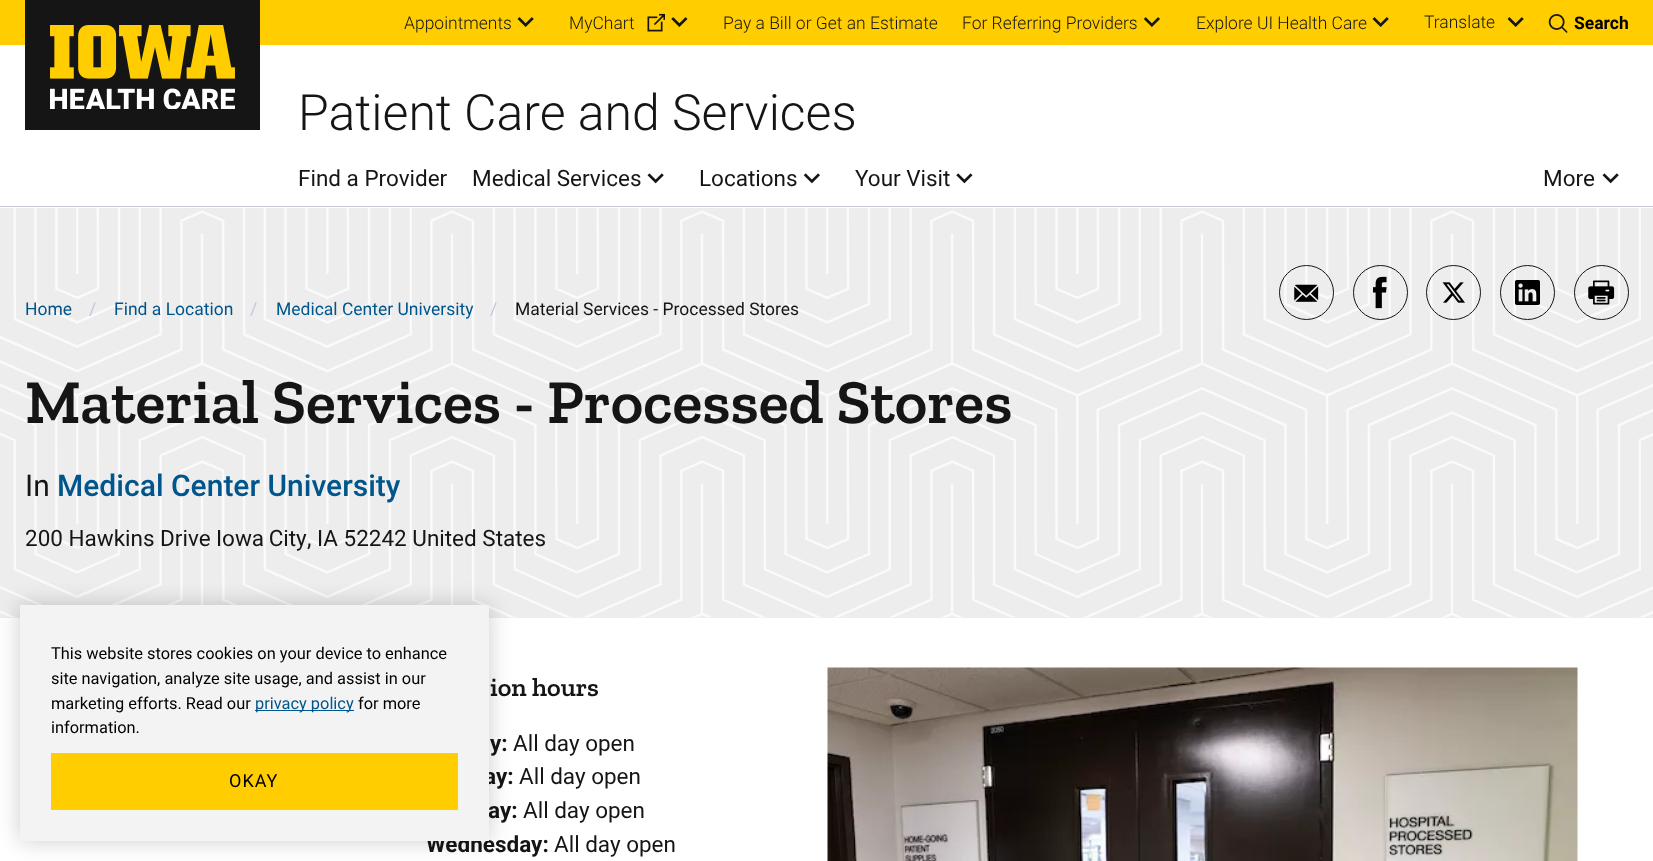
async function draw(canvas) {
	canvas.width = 1653;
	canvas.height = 861;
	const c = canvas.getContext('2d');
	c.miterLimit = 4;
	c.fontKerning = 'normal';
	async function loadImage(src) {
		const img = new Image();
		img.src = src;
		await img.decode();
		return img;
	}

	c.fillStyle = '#fff';
	c.fillRect(0, 0, 1653, 861);
	c.fillStyle = '#c4c8d8';
	c.fillRect(0, 206, 1653, 1);
	c.fillStyle = '#ffcd00';
	c.fillRect(0, 0, 1653, 45);
	c.font = '300 17.5px Roboto';
	c.fillStyle = '#151515';
	c.fillText('Appointments', 404, 29);
	c.drawImage(await loadImage('img1.png'), 517, 17, 17, 10);
	c.fillText('MyChart', 569, 29);
	c.drawImage(await loadImage('img2.png'), 647, 13, 18, 19);
	c.drawImage(await loadImage('img3.png'), 671, 17, 17, 10);
	c.fillText('Pay a Bill or Get an Estimate', 723, 29);
	c.fillText('For Referring Providers', 962, 29);
	c.drawImage(await loadImage('img4.png'), 1143, 17, 17, 10);
	c.fillText('Explore UI Health Care', 1196, 29);
	c.drawImage(await loadImage('img1.png'), 1372, 17, 17, 10);
	c.fillText('Translate', 1424, 28);
	c.drawImage(await loadImage('img1.png'), 1507, 17, 17, 10);
	c.drawImage(await loadImage('img5.png'), 1548, 14, 20, 19);
	c.font = 'bold 17.5px Roboto';
	c.fillStyle = '#000';
	c.fillText('Search', 1574, 29);
	c.fillStyle = '#151515';
	c.fillRect(25, 0, 235, 130);
	c.drawImage(await loadImage('img6.png'), 50, 25, 185, 84);
	c.font = '300 50px Roboto';
	c.fillText('Patient Care and Services', 298, 130);
	c.font = '22.5px Roboto';
	c.fillText('Find a Provider', 298, 186);
	c.fillText('Medical Services', 472, 186);
	c.drawImage(await loadImage('img7.png'), 647, 173, 17, 11);
	c.fillText('Locations', 699, 186);
	c.drawImage(await loadImage('img8.png'), 803, 173, 17, 11);
	c.fillText('Your Visit', 855, 186);
	c.drawImage(await loadImage('img9.png'), 956, 173, 17, 11);
	c.fillText('More', 1543, 186);
	c.drawImage(await loadImage('img7.png'), 1602, 173, 17, 11);
	c.fillStyle = '#ededed';
	c.fillRect(0, 208, 1653, 410);
	c.drawImage(await loadImage('img10.png'), 0, 208, 1653, 410);
	c.font = '17.5px Roboto';
	c.fillStyle = '#00558c';
	c.fillText('Home', 25, 315);
	c.fillStyle = '#c4c8d8';
	c.fillText('/', 89, 315);
	c.fillStyle = '#00558c';
	c.fillText('Find a Location', 114, 315);
	c.fillStyle = '#c4c8d8';
	c.fillText('/', 250, 315);
	c.fillStyle = '#00558c';
	c.fillText('Medical Center University', 276, 315);
	c.fillStyle = '#c4c8d8';
	c.fillText('/', 490, 315);
	c.fillStyle = '#151515';
	c.fillText('Material Services - Processed Stores', 515, 315);
	c.beginPath();
	c.arc(1306.5, 292.5, 27, 0, 2 * Math.PI);
	c.strokeStyle = '#151515';
	c.stroke();
	c.drawImage(await loadImage('img11.png'), 1294, 284, 25, 18);
	c.beginPath();
	c.arc(1380.5, 292.5, 27, 0, 2 * Math.PI);
	c.stroke();
	c.drawImage(await loadImage('img12.png'), 1373, 276, 14, 33);
	c.beginPath();
	c.arc(1453.5, 292.5, 27, 0, 2 * Math.PI);
	c.stroke();
	c.drawImage(await loadImage('img13.png'), 1442, 282, 23, 21);
	c.beginPath();
	c.arc(1527.5, 292.5, 27, 0, 2 * Math.PI);
	c.stroke();
	c.drawImage(await loadImage('img14.png'), 1515, 280, 25, 25);
	c.beginPath();
	c.arc(1601.5, 292.5, 27, 0, 2 * Math.PI);
	c.stroke();
	c.drawImage(await loadImage('img15.png'), 1588, 280, 27, 25);
	c.font = '600 62.5px Zilla Slab';
	c.fillText('Material Services - Processed Stores', 25, 423);
	c.font = '30px Roboto';
	c.fillText('In', 25, 496);
	c.font = '500 30px Roboto';
	c.fillStyle = '#00558c';
	c.fillText('Medical Center University', 57, 496);
	c.font = '22.5px Roboto';
	c.fillStyle = '#151515';
	c.fillText('200 Hawkins Drive', 25, 546);
	c.wordSpacing = '-1px';
	c.fillText('Iowa City', 216, 546);
	c.wordSpacing = '0px';
	c.fillText(', IA 52242 United States', 307, 546);
	c.font = '600 26.25px Zilla Slab';
	c.fillText('ion hours', 490, 696);
	c.font = 'bold 22.5px Roboto';
	c.fillText('y:', 490, 751);
	c.font = '22.5px Roboto';
	c.fillText('All day open', 513, 751);
	c.font = 'bold 22.5px Roboto';
	c.fillText('ay:', 484, 784);
	c.font = '22.5px Roboto';
	c.fillText('All day open', 519, 784);
	c.font = 'bold 22.5px Roboto';
	c.fillText('ay:', 488, 818);
	c.font = '22.5px Roboto';
	c.fillText('All day open', 523, 818);
	c.font = 'bold 22.5px Roboto';
	c.fillText('Wednesday:', 426, 852);
	c.font = '22.5px Roboto';
	c.fillText('All day open', 554, 852);
	c.drawImage(await loadImage('img16.png'), 827, 667, 751, 194);
	c.fillStyle = '#00000033';
	c.filter = 'blur(11px)';
	c.beginPath();
	c.rect(20, 605, 469, 236);
	c.fill();
	c.filter = 'none';
	c.fillStyle = '#f3f3f3';
	c.fillRect(20, 605, 469, 236);
	c.font = '16.4px Roboto';
	c.fillStyle = '#000';
	for (const [text, x, y] of [
		['This website stores cookies on your device to enhance', 51, 659],
		['site navigation, analyze site usage, and assist in our', 51, 684],
		['marketing efforts. Read our', 51, 709],
	]) {
		c.fillText(text, x, y);
	}
	c.fillStyle = '#00558c';
	c.fillRect(255, 710, 99, 1);
	c.fillText('privacy policy', 255, 709);
	c.fillStyle = '#000';
	c.fillText('for more', 358, 709);
	c.fillText('information.', 51, 733);
	c.fillStyle = '#ffcd00';
	c.fillRect(51, 753, 407, 57);
	c.letterSpacing = '1px';
	c.font = '18px Roboto';
	c.fillStyle = '#000';
	c.fillText('OKAY', 229, 787);
}

draw(document.querySelector('canvas'));
